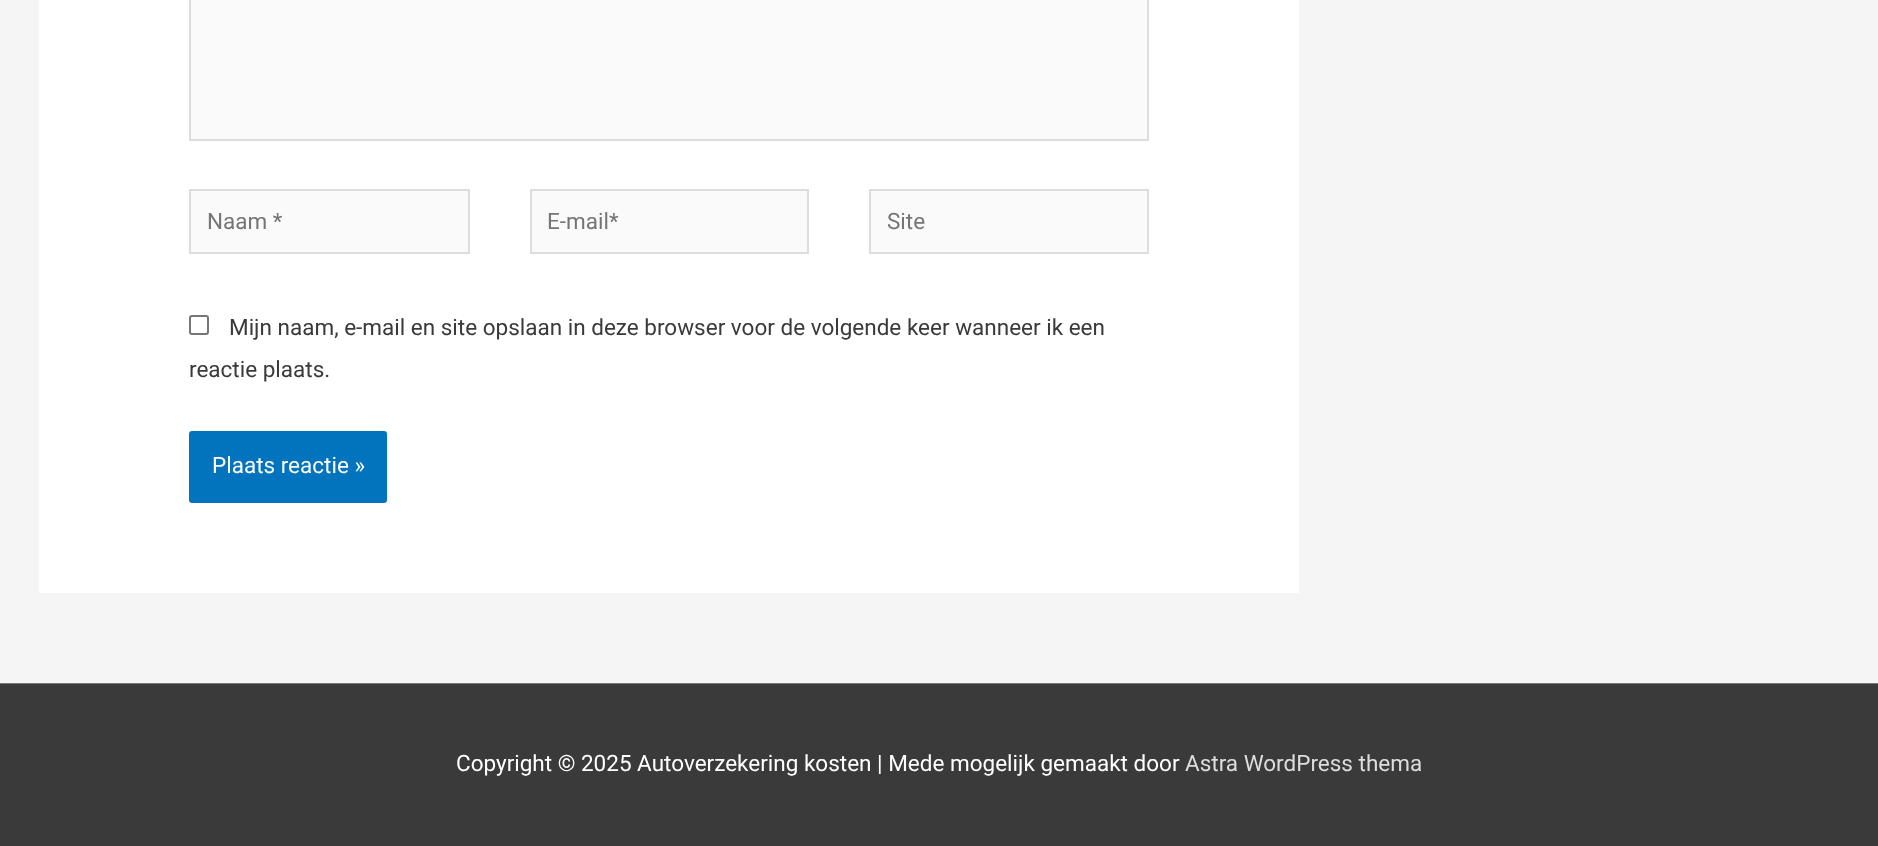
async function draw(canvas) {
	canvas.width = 1878;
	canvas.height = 846;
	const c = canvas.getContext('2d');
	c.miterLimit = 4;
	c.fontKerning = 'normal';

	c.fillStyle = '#f5f5f5';
	c.fillRect(0, 0, 1878, 846);
	c.fillStyle = '#fff';
	c.fillRect(39, 0, 1260, 593);
	c.fillStyle = '#fafafa';
	c.beginPath();
	c.rect(190, -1, 958, 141);
	c.fill();
	c.strokeStyle = '#ddd';
	c.lineWidth = 2;
	c.stroke();
	c.beginPath();
	c.rect(190, 190, 279, 63);
	c.fill();
	c.stroke();
	c.font = '22.5px Roboto';
	c.fillStyle = '#757575';
	c.fillText('Naam *', 207, 229);
	c.fillStyle = '#fafafa';
	c.beginPath();
	c.rect(531, 190, 277, 63);
	c.fill();
	c.stroke();
	c.fillStyle = '#757575';
	c.fillText('E-mail*', 547, 229);
	c.fillStyle = '#fafafa';
	c.beginPath();
	c.rect(870, 190, 278, 63);
	c.fill();
	c.stroke();
	c.fillStyle = '#757575';
	c.fillText('Site', 887, 229);
	c.beginPath();
	c.roundRect(190, 316, 18, 18, 2);
	c.strokeStyle = '#767676';
	c.stroke();
	c.fillStyle = '#3a3a3a';
	c.fillText('Mijn naam, e-mail en site opslaan in deze browser voor de volgende keer wanneer ik een', 229, 335);
	c.fillText('reactie plaats.', 189, 377);
	c.fillStyle = '#0274be';
	c.beginPath();
	c.roundRect(189, 431, 198, 72, 3);
	c.fill();
	c.fillStyle = '#fff';
	c.fillText('Plaats reactie »', 212, 473);
	c.fillStyle = '#7a7a7a';
	c.fillRect(0, 683, 1878, 1);
	c.fillStyle = '#3a3a3a';
	c.fillRect(0, 684, 1878, 162);
	c.fillStyle = '#fff';
	c.fillText('Copyright © 2025 Autoverzekering kosten | Mede mogelijk gemaakt door', 456, 771);
	c.fillStyle = '#ddd';
	c.fillText('Astra WordPress thema', 1185, 771);
}

draw(document.querySelector('canvas'));
